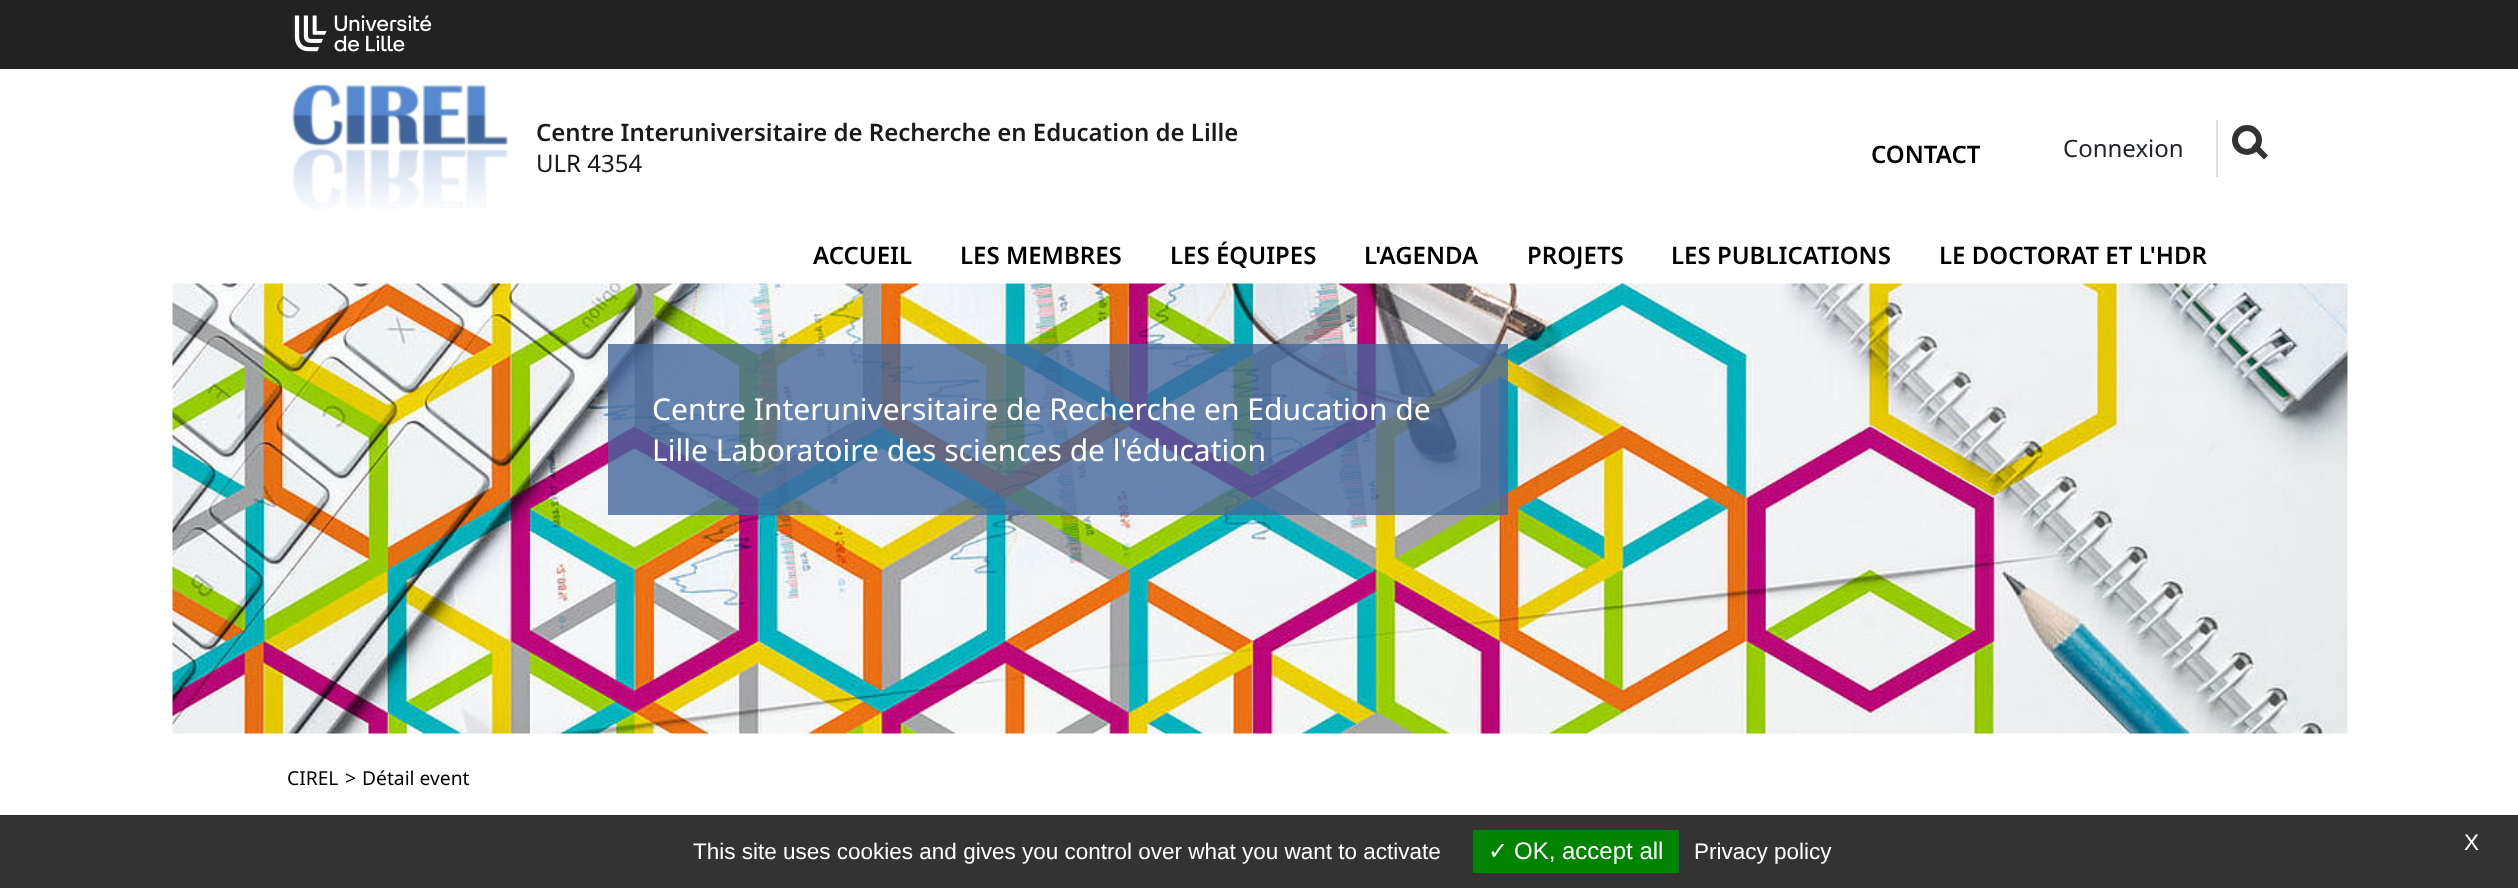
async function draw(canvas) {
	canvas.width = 2518;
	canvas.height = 888;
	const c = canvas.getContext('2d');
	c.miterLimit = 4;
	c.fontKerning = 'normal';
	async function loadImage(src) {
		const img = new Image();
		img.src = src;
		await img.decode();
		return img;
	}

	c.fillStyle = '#fff';
	c.fillRect(0, 0, 2518, 888);
	c.fillStyle = '#222';
	c.fillRect(0, 0, 2518, 69);
	c.drawImage(await loadImage('img1.png'), 294, 15, 138, 37);
	c.drawImage(await loadImage('img2.png'), 292, 83, 217, 126);
	c.font = '600 24px Noto Sans';
	c.fillStyle = '#1a1a1a';
	c.fillText('Centre Interuniversitaire de Recherche en Education de Lille', 536, 141);
	c.font = '24px Noto Sans';
	c.fillText('ULR 4354', 536, 172);
	c.font = '600 24px Noto Sans';
	c.fillStyle = '#000';
	c.fillText('CONTACT', 1871, 163);
	c.font = '24px Noto Sans';
	c.fillStyle = '#212529';
	c.fillText('Connexion', 2063, 157);
	c.fillStyle = '#dedede';
	c.fillRect(2216, 120, 2, 57);
	c.beginPath();
	c.arc(2247, 140, 12, 0, 2 * Math.PI);
	c.strokeStyle = '#333';
	c.lineWidth = 6;
	c.stroke();
	c.fillStyle = '#333';
	c.beginPath();
	c.moveTo(2255.5, 142.5);
	c.lineTo(2268, 155.5);
	c.lineTo(2264, 159.5);
	c.lineTo(2251.5, 147);
	c.closePath();
	c.fill();
	c.font = '600 24px Noto Sans';
	c.fillStyle = '#000';
	for (const [text, x, y] of [
		['ACCUEIL', 813, 264],
		['LES MEMBRES', 960, 264],
		['LES ÉQUIPES', 1170, 264],
		['L\'AGENDA', 1364, 264],
		['PROJETS', 1527, 264],
		['LES PUBLICATIONS', 1671, 264],
		['LE DOCTORAT ET L\'HDR', 1939, 264],
	]) {
		c.fillText(text, x, y);
	}
	c.drawImage(await loadImage('img3.png'), 172, 283, 2176, 451);
	c.fillStyle = '#43669ccc';
	c.fillRect(608, 344, 900, 171);
	c.font = '30px Noto Sans';
	c.fillStyle = '#fff';
	c.fillText('Centre Interuniversitaire de Recherche en Education de', 652, 420);
	c.fillText('Lille Laboratoire des sciences de l\'éducation', 652, 461);
	c.font = '19.25px Noto Sans';
	c.fillStyle = '#000';
	for (const [text, x, y] of [
		['CIREL', 287, 785],
		['>', 345, 785],
		['Détail event', 362, 785],
	]) {
		c.fillText(text, x, y);
	}
	c.fillStyle = '#333';
	c.fillRect(0, 815, 2518, 73);
	c.font = '22.5px Liberation Sans';
	c.fillStyle = '#fff';
	c.fillText('This site uses cookies and gives you control over what you want to activate', 693, 859);
	c.fillStyle = '#008300';
	c.fillRect(1473, 830, 206, 43);
	c.font = '24px DejaVu Sans';
	c.fillStyle = '#fff';
	c.fillText('✓', 1488, 859);
	c.font = '24px Liberation Sans';
	c.fillText('OK, accept all', 1514, 859);
	c.font = '22.5px Liberation Sans';
	c.fillText('Privacy policy', 1694, 859);
	c.fillText('X', 2464, 850);
}

draw(document.querySelector('canvas'));
